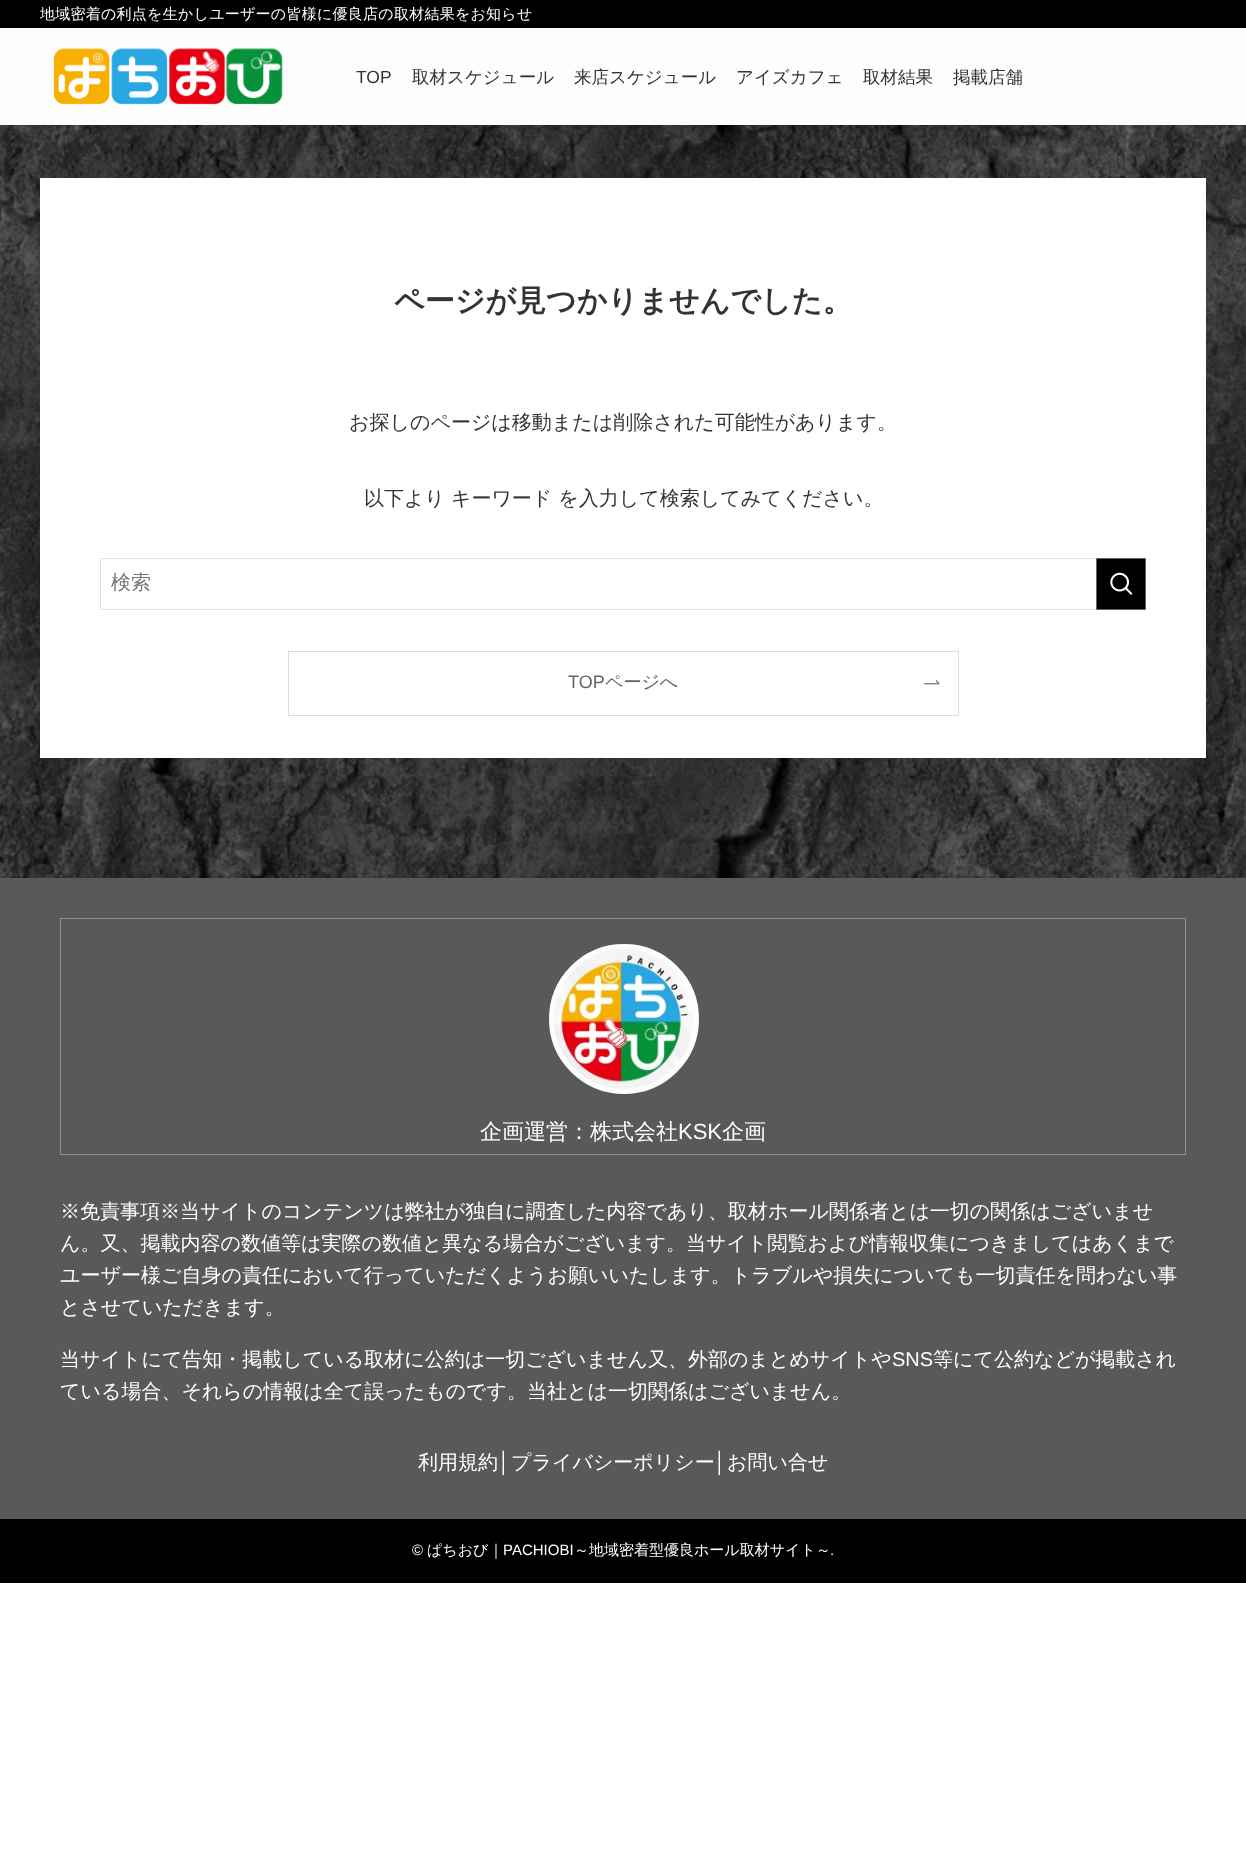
async function draw(canvas) {
	canvas.width = 1246;
	canvas.height = 1852;
	const c = canvas.getContext('2d');
	c.miterLimit = 4;
	c.fontKerning = 'normal';
	async function loadImage(src) {
		const img = new Image();
		img.src = src;
		await img.decode();
		return img;
	}

	c.fillStyle = '#fff';
	c.fillRect(0, 0, 1246, 1852);
	c.drawImage(await loadImage('img1.png'), 0, 125, 1246, 753);
	c.fillStyle = '#0000001f';
	c.filter = 'blur(2.5px)';
	c.beginPath();
	c.rect(0, 1, 1246, 125);
	c.fill();
	c.filter = 'none';
	c.fillStyle = '#fdfdfd';
	c.fillRect(0, 28, 1246, 97);
	c.fillStyle = '#000';
	c.fillRect(0, 0, 1246, 28);
	c.letterSpacing = '0.25px';
	c.font = '500 15px WenQuanYi Zen Hei';
	c.fillStyle = '#fff';
	c.fillText('地域密着の利点を生かしユーザーの皆様に優良店の取材結果をお知らせ', 40, 19);
	c.drawImage(await loadImage('img2.png'), 53, 48, 230, 57);
	c.letterSpacing = '0px';
	c.font = '17.5px Liberation Sans';
	c.fillStyle = '#333';
	c.fillText('TOP', 356, 83);
	c.font = '500 17.5px WenQuanYi Zen Hei';
	for (const [text, x, y] of [
		['取材スケジュール', 412, 83],
		['来店スケジュール', 574, 83],
		['アイズカフェ', 736, 83],
		['取材結果', 863, 83],
		['掲載店舗', 953, 83],
	]) {
		c.fillText(text, x, y);
	}
	c.drawImage(await loadImage('img3.png'), 40, 146, 14, 10);
	c.fillStyle = '#333333cc';
	c.beginPath();
	c.moveTo(113, 146);
	c.lineTo(111.5, 146);
	c.lineTo(115, 151);
	c.lineTo(111.5, 156);
	c.lineTo(113, 156);
	c.lineTo(117, 151);
	c.closePath();
	c.fill();
	c.fillStyle = '#fff';
	c.fillRect(40, 178, 1166, 580);
	c.font = 'bold 30px WenQuanYi Zen Hei';
	c.fillStyle = '#333';
	c.fillText('ページが見つかりませんでした。', 394, 311);
	c.font = '500 20px WenQuanYi Zen Hei';
	c.fillText('お探しのページは移動または削除された可能性があります。', 349, 429);
	c.fillText('以下より キーワード を入力して検索してみてください。', 364, 505);
	c.strokeStyle = '#e3e3e3';
	c.strokeRect(100.5, 558.5, 1045, 51);
	c.fillStyle = '#757575';
	c.fillText('検索', 111, 589);
	c.fillStyle = '#000';
	c.beginPath();
	c.rect(1096.5, 558.5, 49, 51);
	c.fill();
	c.strokeStyle = '#646464';
	c.stroke();
	c.drawImage(await loadImage('img4.png'), 1110, 572, 23, 23);
	c.strokeStyle = '#dcdcdc';
	c.strokeRect(288.5, 651.5, 670, 64);
	c.font = '18px Liberation Sans';
	c.fillStyle = '#666';
	c.fillText('TOP', 568, 688);
	c.font = '500 18px WenQuanYi Zen Hei';
	c.fillText('ページへ', 605, 688);
	c.drawImage(await loadImage('img5.png'), 924, 680, 16, 5);
	c.fillStyle = '#000';
	c.fillRect(0, 1519, 1246, 64);
	c.fillStyle = '#595959';
	c.fillRect(0, 878, 1246, 641);
	c.strokeStyle = '#909090';
	c.strokeRect(60.5, 918.5, 1125, 236);
	c.fillStyle = '#fdfdfd';
	c.beginPath();
	c.arc(624, 1019, 72.5, 0, 2 * Math.PI);
	c.fill();
	c.strokeStyle = '#fdfdfd';
	c.lineWidth = 5;
	c.stroke();
	c.drawImage(await loadImage('img6.png'), 554, 949, 139, 140);
	c.font = '500 22px WenQuanYi Zen Hei';
	c.fillStyle = '#fff';
	c.fillText('企画運営：株式会社', 480, 1139);
	c.font = '22px Liberation Sans';
	c.fillText('KSK', 678, 1139);
	c.font = '500 22px WenQuanYi Zen Hei';
	c.fillText('企画', 722, 1139);
	c.font = '500 20px WenQuanYi Zen Hei';
	for (const [text, x, y] of [
		['※免責事項※当サイトのコンテンツは弊社が独自に調査した内容であり、取材ホール関係者とは一切の関係はございませ', 60, 1218],
		['ん。又、掲載内容の数値等は実際の数値と異なる場合がございます。当サイト閲覧および情報収集につきましてはあくまで', 60, 1250],
		['ユーザー様ご自身の責任において行っていただくようお願いいたします。トラブルや損失についても一切責任を問わない事', 60, 1282],
		['とさせていただきます。', 60, 1314],
		['当サイトにて告知・掲載している取材に公約は一切ございません又、外部のまとめサイトや', 60, 1366],
	]) {
		c.fillText(text, x, y);
	}
	c.font = '20px Liberation Sans';
	c.fillText('SNS', 892, 1366);
	c.font = '500 20px WenQuanYi Zen Hei';
	for (const [text, x, y] of [
		['等にて公約などが掲載され', 933, 1366],
		['ている場合、それらの情報は全て誤ったものです。当社とは一切関係はございません。', 60, 1398],
		['利用規約', 418, 1469],
	]) {
		c.fillText(text, x, y);
	}
	c.font = '20px Liberation Sans';
	c.fillText('│', 498, 1469);
	c.font = '500 20px WenQuanYi Zen Hei';
	c.fillText('プライバシーポリシー', 511, 1469);
	c.font = '20px Liberation Sans';
	c.fillText('│', 714, 1469);
	c.font = '500 20px WenQuanYi Zen Hei';
	c.fillText('お問い合せ', 727, 1469);
	c.font = '15px Liberation Sans';
	c.fillText('©', 412, 1555);
	c.font = '500 15px WenQuanYi Zen Hei';
	c.fillText('ぱちおび｜', 427, 1555);
	c.font = '15px Liberation Sans';
	c.fillText('PACHIOBI', 503, 1555);
	c.font = '500 15px WenQuanYi Zen Hei';
	c.fillText('～地域密着型優良ホール取材サイト～', 574, 1555);
	c.font = '15px Liberation Sans';
	c.fillText('.', 830, 1555);
}

draw(document.querySelector('canvas'));
